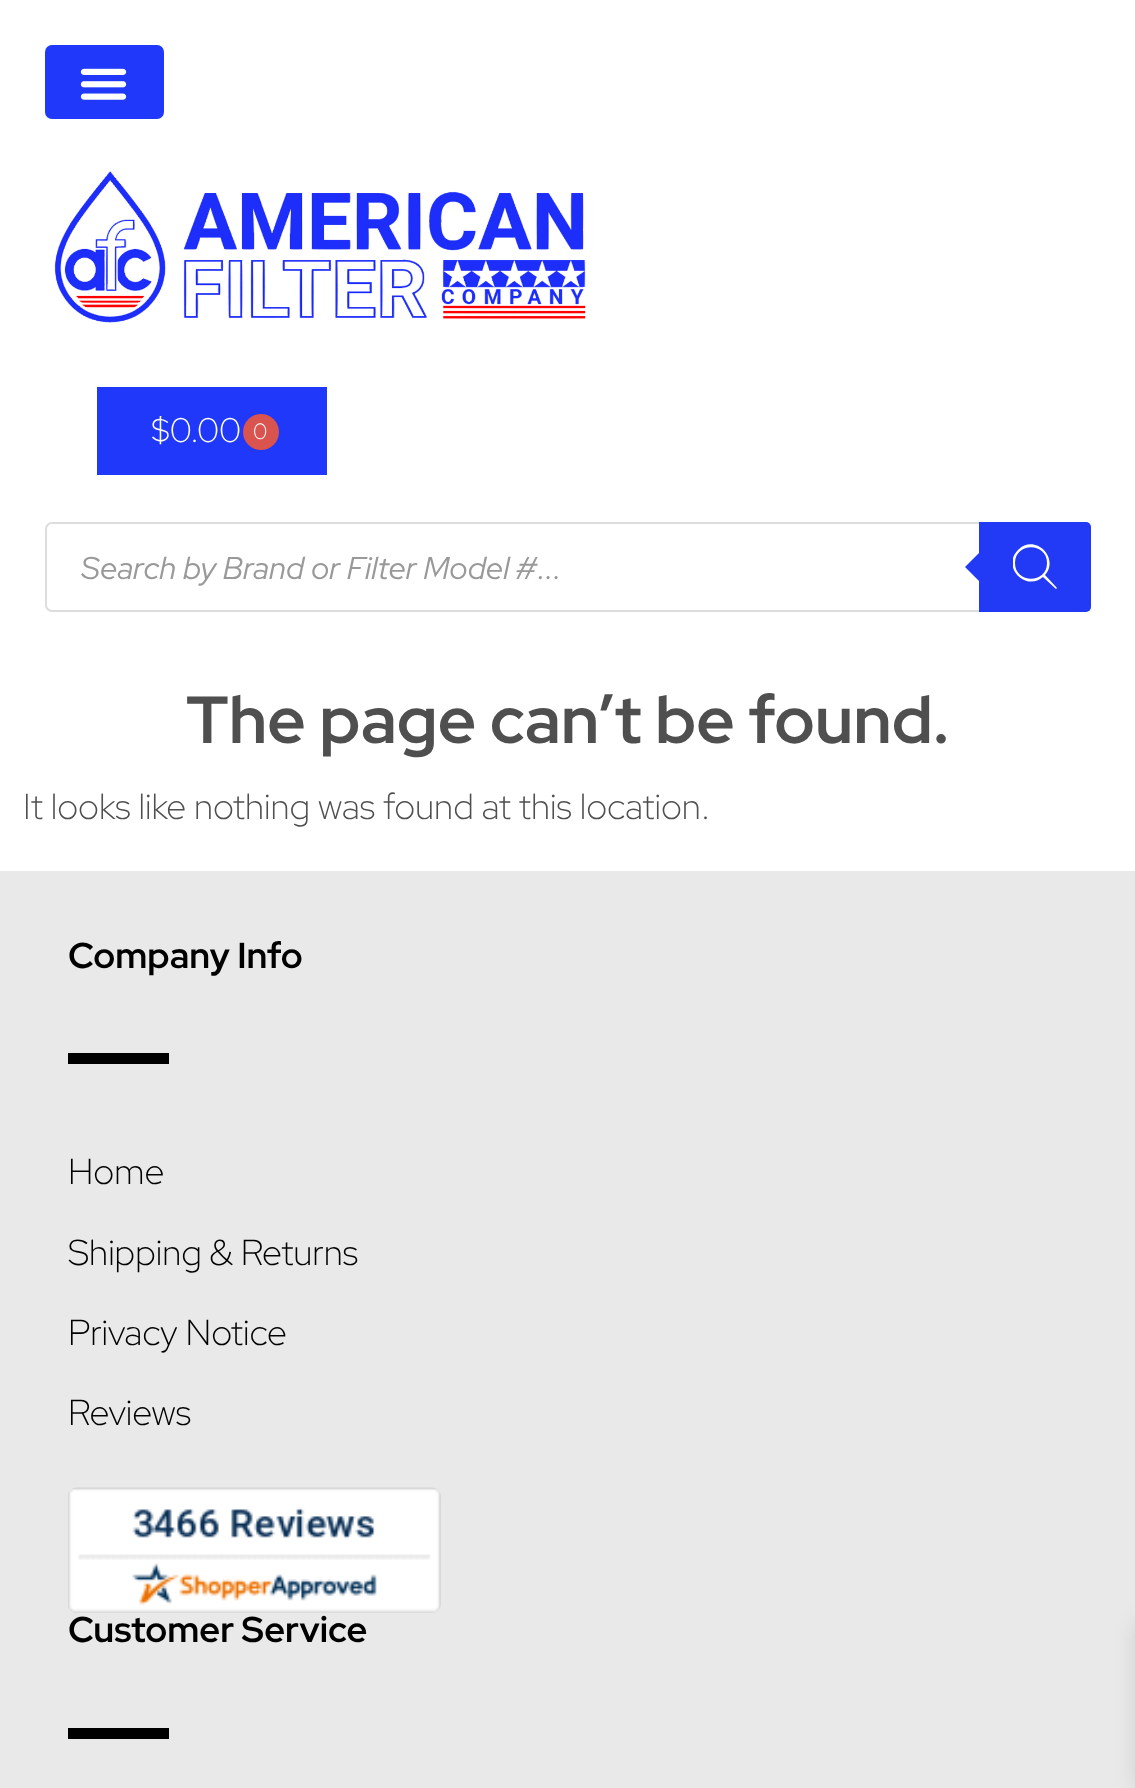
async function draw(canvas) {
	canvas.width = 1135;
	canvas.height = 1788;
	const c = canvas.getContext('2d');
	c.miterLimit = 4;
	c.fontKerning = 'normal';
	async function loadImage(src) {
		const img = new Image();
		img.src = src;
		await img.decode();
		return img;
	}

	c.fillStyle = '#fff';
	c.fillRect(0, 0, 1135, 1788);
	c.fillStyle = '#1f38f9';
	c.beginPath();
	c.roundRect(45, 45, 119, 74, 7);
	c.fill();
	c.drawImage(await loadImage('img1.png'), 80, 68, 47, 32);
	c.drawImage(await loadImage('img2.png'), 54, 171, 532, 152);
	c.fillRect(97, 387, 230, 88);
	c.font = '300 34px Red Hat Display';
	c.fillStyle = '#fff';
	c.fillText('$0.00', 151, 442);
	c.fillStyle = '#d9534f';
	c.beginPath();
	c.arc(261, 432, 18, 0, 2 * Math.PI);
	c.fill();
	c.font = '300 22px Red Hat Display';
	c.fillStyle = '#fff';
	c.fillText('0', 253, 439);
	c.beginPath();
	c.roundRect(46, 523, 1044, 88, 6);
	c.strokeStyle = '#ddd';
	c.lineWidth = 2;
	c.stroke();
	c.font = 'italic 31.5px Red Hat Display';
	c.fillStyle = '#999';
	c.fillText('Search by Brand or Filter Model #...', 81, 579);
	c.fillStyle = '#223af6';
	c.beginPath();
	c.roundRect(979, 522, 112, 90, [0, 5, 5, 0]);
	c.fill();
	c.beginPath();
	c.moveTo(983, 549);
	c.lineTo(983, 585);
	c.lineTo(965, 567);
	c.closePath();
	c.fill();
	c.save();
	c.beginPath();
	c.rect(1013, 538, 45, 58);
	c.clip();
	c.fillStyle = '#fff';
	c.beginPath();
	c.moveTo(1057, 588);
	c.lineTo(1045, 575);
	c.bezierCurveTo(1060, 558, 1035, 533, 1018, 550);
	c.bezierCurveTo(1001, 567, 1026, 592, 1043, 577);
	c.lineTo(1056, 589);
	c.closePath();
	c.moveTo(1015, 563);
	c.bezierCurveTo(1015, 542, 1047, 542, 1047, 563);
	c.bezierCurveTo(1047, 584, 1015, 584, 1015, 563);
	c.closePath();
	c.fill();
	c.restore();
	c.font = 'bold 66.5px Red Hat Display';
	c.fillStyle = '#4f4f4f';
	c.fillText('The page can’t be found.', 186, 743);
	c.font = '300 36px Red Hat Display';
	c.fillText('It looks like nothing was found at this location.', 23, 819);
	c.fillStyle = '#e9e9e9';
	c.fillRect(0, 871, 1135, 917);
	c.font = 'bold 36px Red Hat Display';
	c.fillStyle = '#000';
	c.fillText('Company Info', 68, 968);
	c.fillRect(68, 1053, 101, 11);
	c.font = '300 36px Red Hat Display';
	for (const [text, x, y] of [
		['Home', 68, 1184],
		['Shipping & Returns', 68, 1265],
		['Privacy Notice', 68, 1345],
		['Reviews', 68, 1425],
	]) {
		c.fillText(text, x, y);
	}
	c.drawImage(await loadImage('img3.png'), 68, 1487, 373, 126);
	c.font = 'bold 36px Red Hat Display';
	c.fillText('Customer Service', 68, 1642);
	c.fillRect(68, 1728, 101, 11);
	c.fillStyle = '#0000001a';
	c.filter = 'blur(11px)';
	c.beginPath();
	c.rect(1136, 1622, 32, 165);
	c.fill();
	c.filter = 'none';
}

draw(document.querySelector('canvas'));
